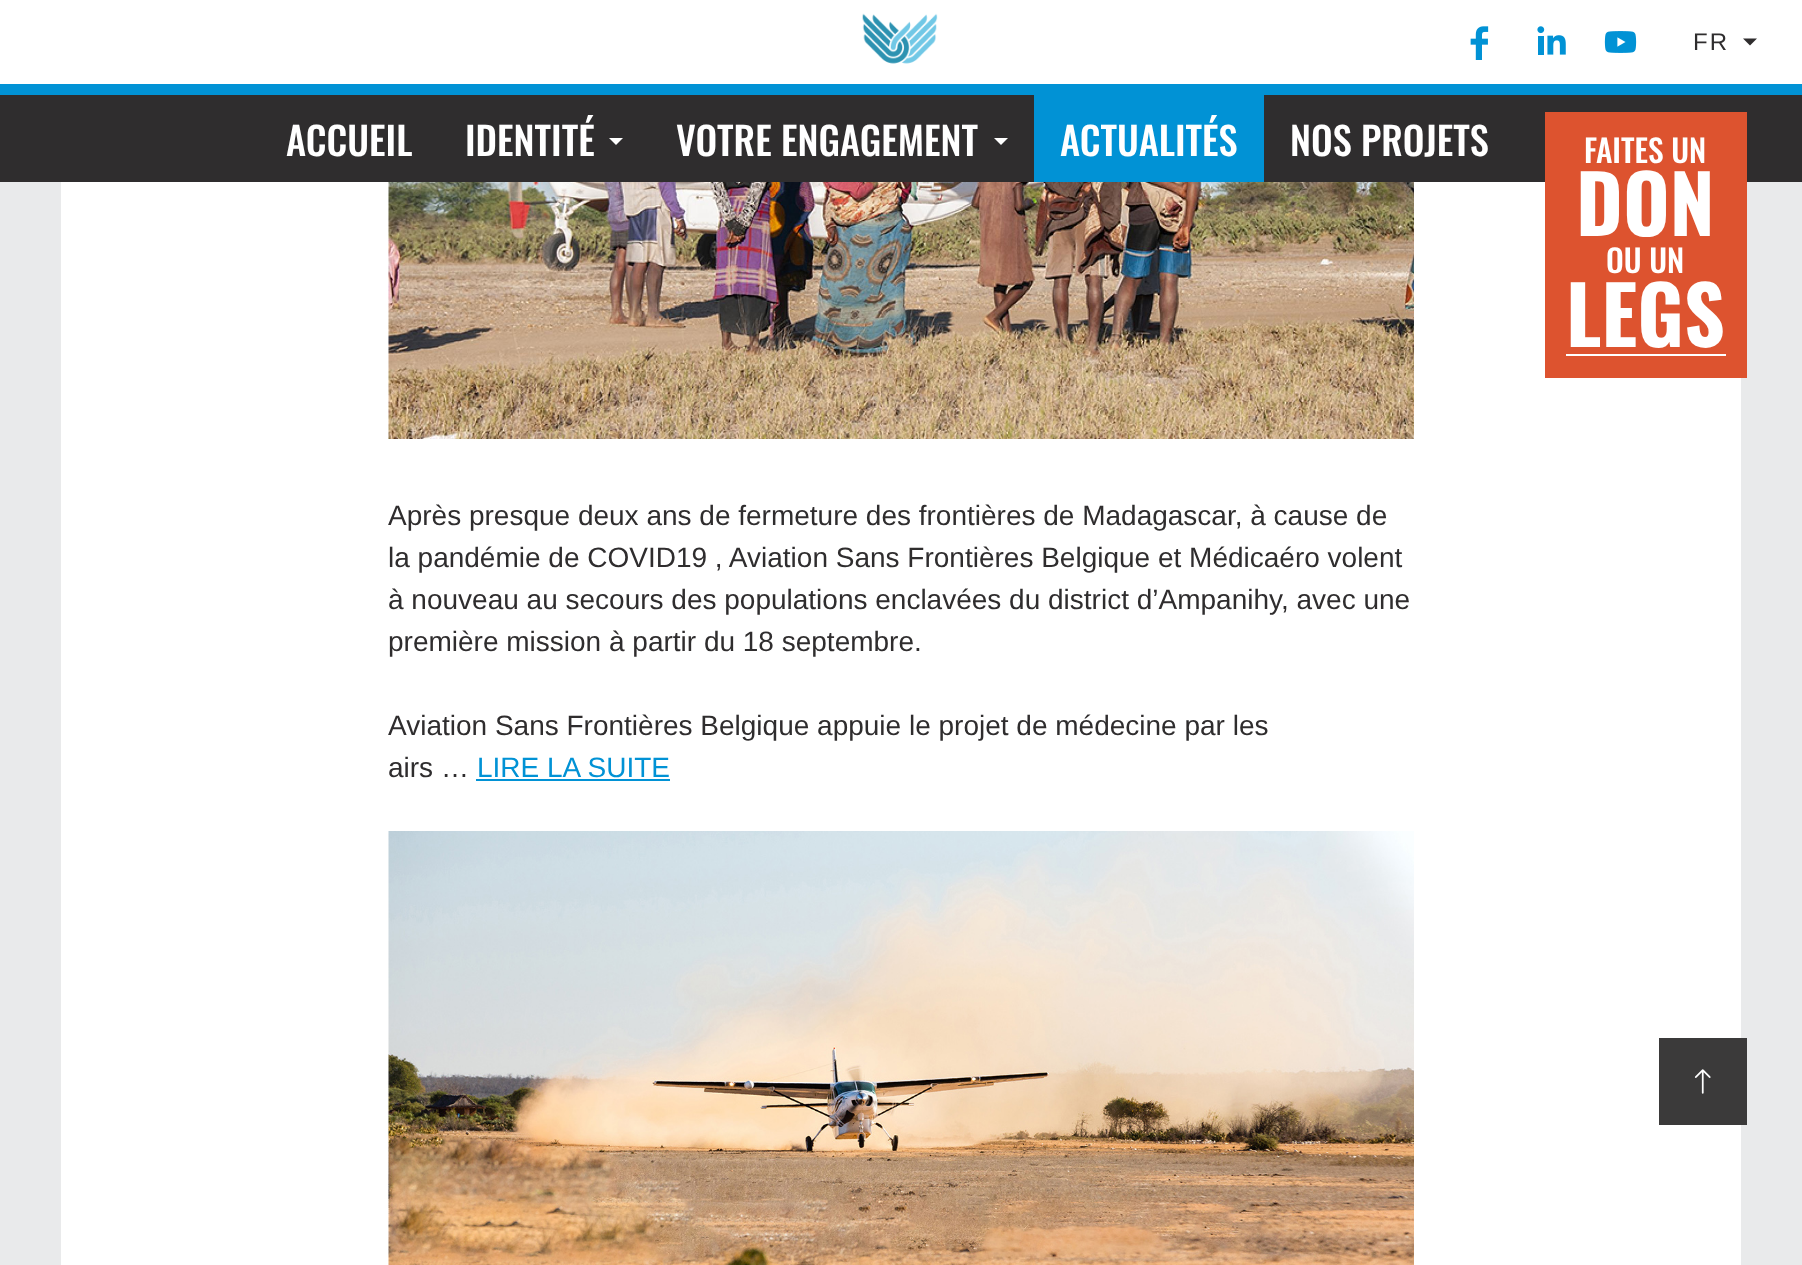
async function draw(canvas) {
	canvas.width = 1802;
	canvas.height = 1265;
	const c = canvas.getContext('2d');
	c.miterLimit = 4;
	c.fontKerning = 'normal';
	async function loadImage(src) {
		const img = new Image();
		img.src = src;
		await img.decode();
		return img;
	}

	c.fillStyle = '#e9eaeb';
	c.fillRect(0, 0, 1802, 1265);
	c.fillStyle = '#fff';
	c.fillRect(0, 0, 1802, 84);
	c.drawImage(await loadImage('img1.png'), 862, 13, 76, 51);
	c.drawImage(await loadImage('img2.png'), 1470, 26, 19, 34);
	c.drawImage(await loadImage('img3.png'), 1537, 26, 29, 29);
	c.drawImage(await loadImage('img4.png'), 1604, 31, 33, 22);
	c.letterSpacing = '2px';
	c.font = '24px Liberation Sans';
	c.fillStyle = '#2f2d2e';
	c.fillText('FR', 1693, 50);
	c.beginPath();
	c.moveTo(1743, 38.5);
	c.lineTo(1757, 38.5);
	c.lineTo(1750, 45.5);
	c.closePath();
	c.fill();
	c.fillRect(0, 95, 1802, 87);
	c.fillStyle = '#0192d5';
	c.fillRect(0, 84, 1802, 11);
	c.letterSpacing = '0px';
	c.font = '500 38.5px Oswald';
	c.fillStyle = '#fff';
	c.fillText('ACCUEIL', 286, 156);
	c.fillText('IDENTITÉ', 465, 156);
	c.beginPath();
	c.moveTo(609, 138);
	c.lineTo(623, 138);
	c.lineTo(616, 145);
	c.closePath();
	c.fill();
	c.fillText('VOTRE ENGAGEMENT', 676, 156);
	c.beginPath();
	c.moveTo(994, 138);
	c.lineTo(1008, 138);
	c.lineTo(1001, 145);
	c.closePath();
	c.fill();
	c.fillStyle = '#0192d5';
	c.fillRect(1034, 95, 230, 87);
	c.fillStyle = '#fff';
	c.fillText('ACTUALITÉS', 1060, 156);
	c.fillText('NOS PROJETS', 1290, 156);
	c.fillRect(61, 182, 1680, 1083);
	c.fillStyle = '#dd532f';
	c.fillRect(1545, 112, 202, 266);
	c.font = '500 31.5px Oswald';
	c.fillStyle = '#fff';
	c.fillText('FAITES UN', 1584, 163);
	c.font = 'bold 80px Oswald';
	c.fillText('DON', 1576, 236);
	c.font = '500 31.5px Oswald';
	c.fillText('OU UN', 1606, 273);
	c.fillRect(1566, 354, 160, 2);
	c.font = 'bold 80px Oswald';
	c.fillText('LEGS', 1566, 347);
	c.drawImage(await loadImage('img5.png'), 388, 182, 1026, 257);
	c.font = '28px Liberation Sans';
	c.fillStyle = '#2f2d2e';
	for (const [text, x, y] of [
		['Après presque deux ans de fermeture des frontières de Madagascar, à cause de', 388, 525],
		['la pandémie de COVID19 , Aviation Sans Frontières Belgique et Médicaéro volent', 388, 567],
		['à nouveau au secours des populations enclavées du district d’Ampanihy, avec une', 388, 609],
		['première mission à partir du 18 septembre.', 388, 651],
		['Aviation Sans Frontières Belgique appuie le projet de médecine par les', 388, 735],
		['airs …', 388, 777],
	]) {
		c.fillText(text, x, y);
	}
	c.fillStyle = '#0192d5';
	c.fillText('LIRE LA SUITE', 477, 777);
	c.fillRect(476, 779, 194, 2);
	c.drawImage(await loadImage('img6.png'), 388, 831, 1026, 434);
	c.fillStyle = '#3b3a3a';
	c.fillRect(1659, 1038, 88, 87);
	c.drawImage(await loadImage('img7.png'), 1694, 1069, 17, 25);
}

draw(document.querySelector('canvas'));
